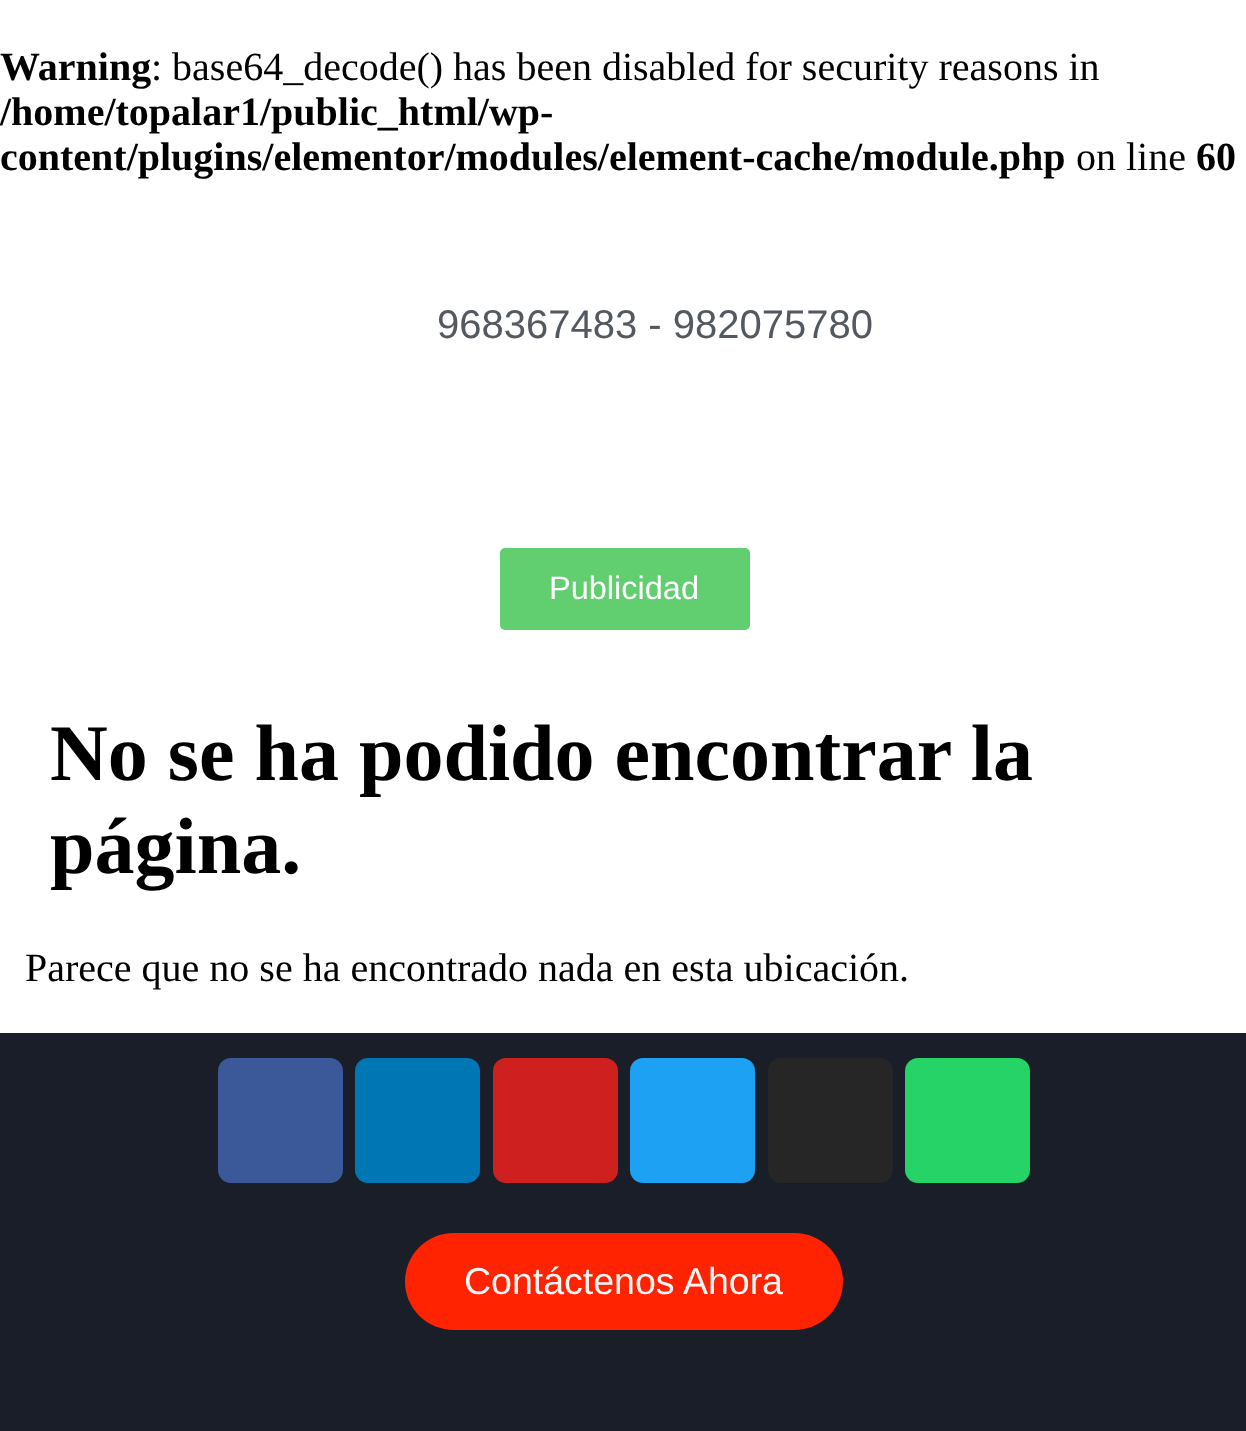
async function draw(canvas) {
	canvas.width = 1246;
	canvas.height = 1431;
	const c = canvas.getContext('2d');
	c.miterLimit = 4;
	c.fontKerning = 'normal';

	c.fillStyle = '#fff';
	c.fillRect(0, 0, 1246, 1431);
	c.font = 'bold 40px Liberation Serif';
	c.fillStyle = '#000';
	c.fillText('Warning', 0, 80);
	c.font = '40px Liberation Serif';
	c.fillText(': base64_decode() has been disabled for security reasons in', 151, 80);
	c.font = 'bold 40px Liberation Serif';
	c.fillText('/home/topalar1/public_html/wp-', 0, 125);
	c.fillText('content/plugins/elementor/modules/element-cache/module.php', 0, 170);
	c.font = '40px Liberation Serif';
	c.fillText('on line', 1076, 170);
	c.font = 'bold 40px Liberation Serif';
	c.fillText('60', 1196, 170);
	c.font = '40px Liberation Sans';
	c.fillStyle = '#54595f';
	c.fillText('968367483 - 982075780', 437, 338);
	c.fillStyle = '#61ce70';
	c.beginPath();
	c.roundRect(500, 548, 250, 82, 5);
	c.fill();
	c.font = '32.5px Liberation Sans';
	c.fillStyle = '#fff';
	c.fillText('Publicidad', 549, 599);
	c.font = 'bold 80px Liberation Serif';
	c.fillStyle = '#000';
	c.fillText('No se ha podido encontrar la', 50, 780);
	c.fillText('página.', 50, 873);
	c.font = '40px Liberation Serif';
	c.fillText('Parece que no se ha encontrado nada en esta ubicación.', 25, 981);
	c.fillStyle = '#1a1e29';
	c.fillRect(0, 1033, 1246, 398);
	c.fillStyle = '#3b5998';
	c.beginPath();
	c.roundRect(218, 1058, 125, 125, 13);
	c.fill();
	c.fillStyle = '#0077b5';
	c.beginPath();
	c.roundRect(355, 1058, 125, 125, 13);
	c.fill();
	c.fillStyle = '#cd201f';
	c.beginPath();
	c.roundRect(493, 1058, 125, 125, 13);
	c.fill();
	c.fillStyle = '#1da1f2';
	c.beginPath();
	c.roundRect(630, 1058, 125, 125, 13);
	c.fill();
	c.fillStyle = '#262626';
	c.beginPath();
	c.roundRect(768, 1058, 125, 125, 13);
	c.fill();
	c.fillStyle = '#25d366';
	c.beginPath();
	c.roundRect(905, 1058, 125, 125, 13);
	c.fill();
	c.fillStyle = '#ff2301';
	c.beginPath();
	c.roundRect(405, 1233, 438, 97, 48.5);
	c.fill();
	c.font = '37.5px Liberation Sans';
	c.fillStyle = '#f6f6f6';
	c.fillText('Contáctenos Ahora', 464, 1294);
}

draw(document.querySelector('canvas'));
